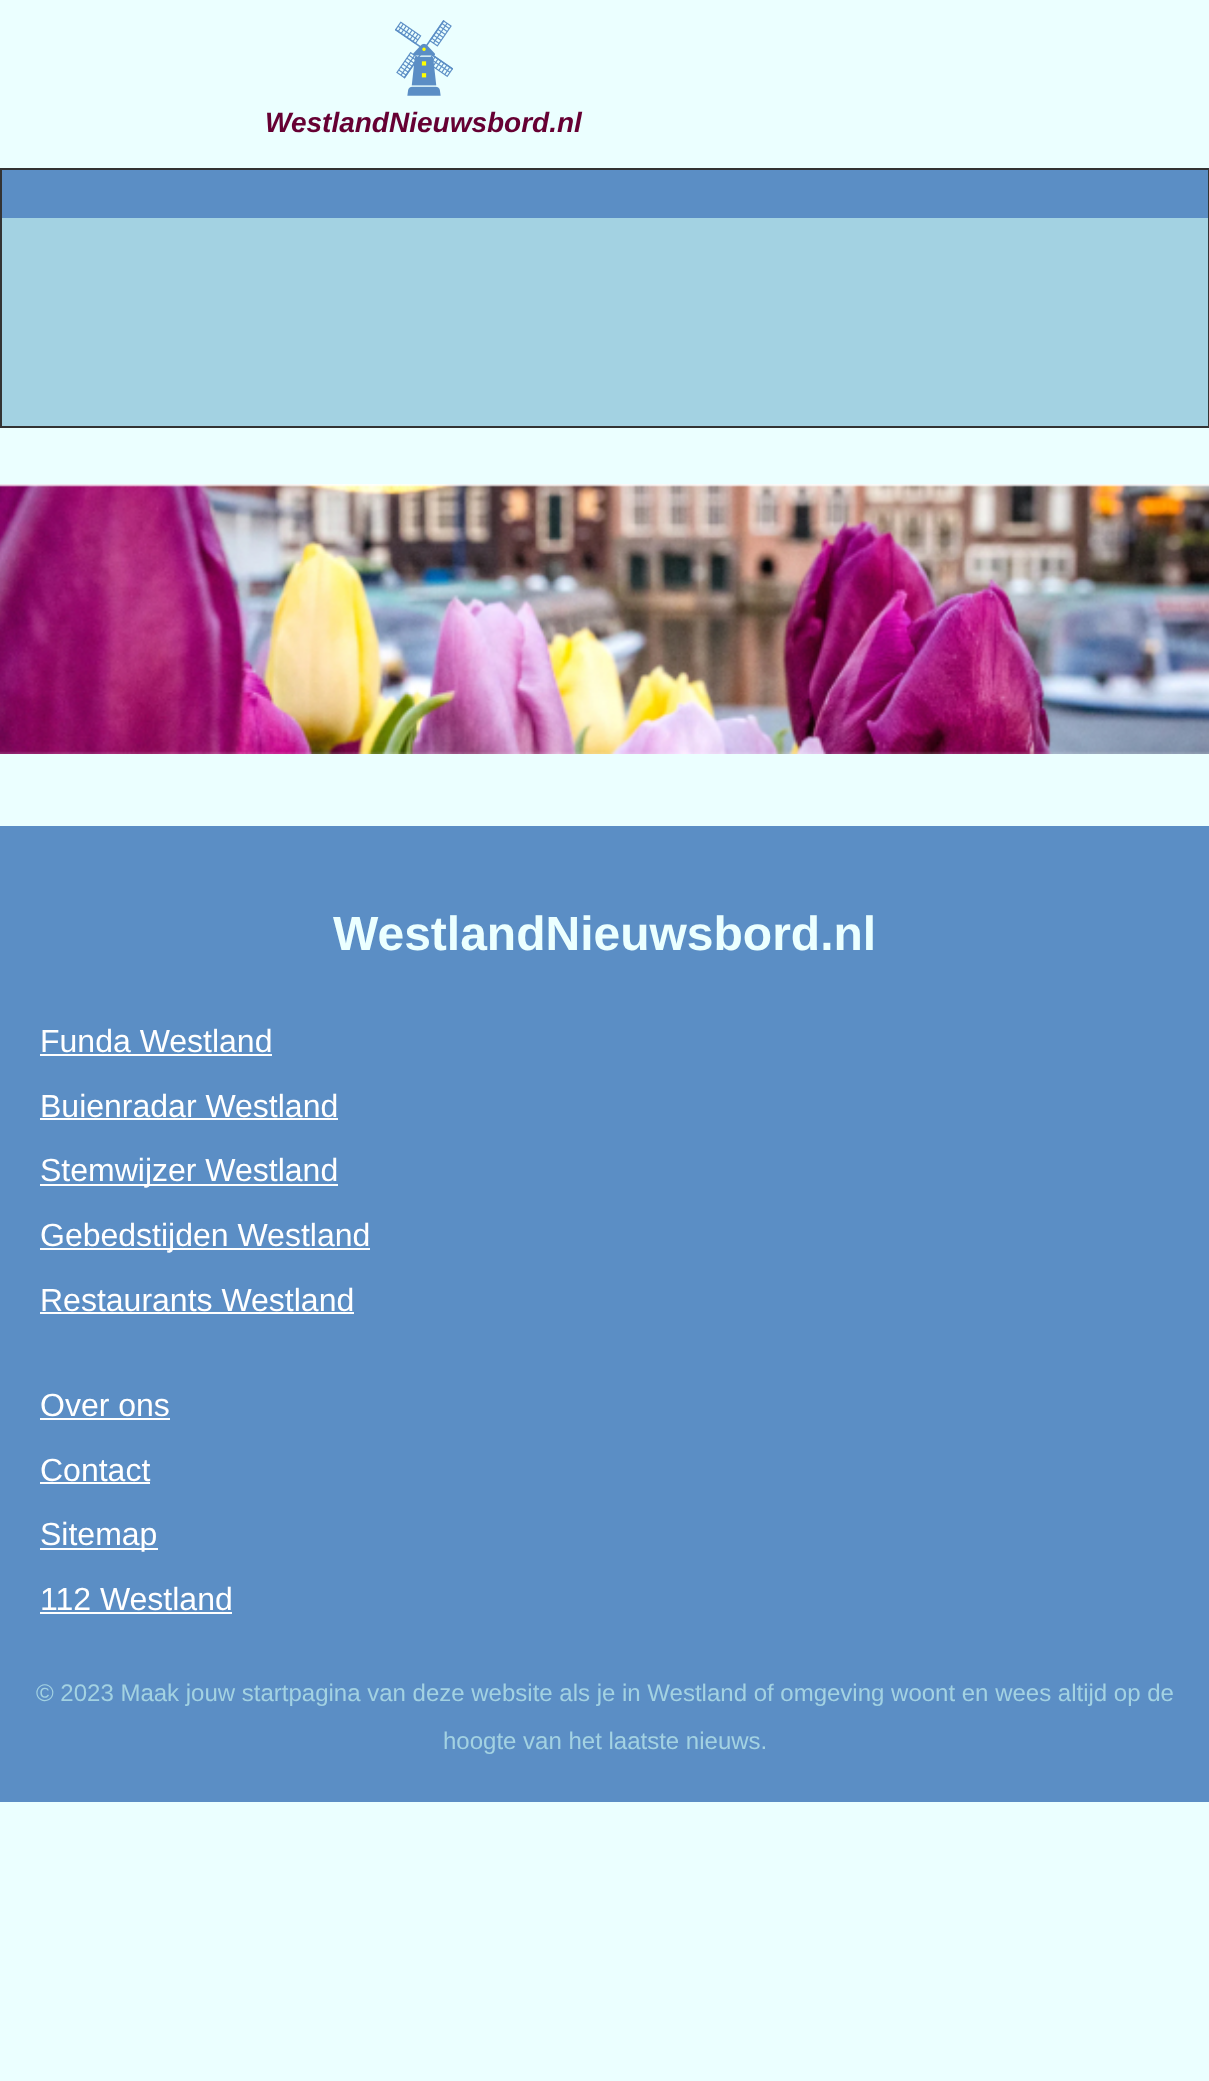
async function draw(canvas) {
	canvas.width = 1209;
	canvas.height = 2081;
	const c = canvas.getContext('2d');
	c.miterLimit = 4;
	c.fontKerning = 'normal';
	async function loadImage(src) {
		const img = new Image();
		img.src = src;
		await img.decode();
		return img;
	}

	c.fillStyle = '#ebffff';
	c.fillRect(0, 0, 1209, 2081);
	c.drawImage(await loadImage('img1.png'), 395, 20, 58, 76);
	c.font = 'italic bold 28px Liberation Sans';
	c.fillStyle = '#603';
	c.fillText('WestlandNieuwsbord.nl', 265, 132);
	for (const [x, y, w, h, color] of [
		[2, 170, 1206, 48, '#5b8ec5'],
		[0, 168, 1209, 2, '#333'],
		[1208, 168, 1, 260, '#333'],
		[0, 168, 2, 50, '#333'],
		[2, 218, 1206, 208, '#a3d2e2'],
		[0, 426, 1209, 2, '#333'],
		[0, 218, 2, 210, '#333'],
	]) {
		c.fillStyle = color;
		c.fillRect(x, y, w, h);
	}
	c.drawImage(await loadImage('img2.png'), 0, 484, 1209, 270);
	c.fillStyle = '#5b8ec5';
	c.fillRect(0, 826, 1209, 976);
	c.font = 'bold 48px Liberation Sans';
	c.fillStyle = '#ebffff';
	c.fillText('WestlandNieuwsbord.nl', 333, 950);
	c.font = '32px Liberation Sans';
	c.fillStyle = '#fff';
	c.fillText('Funda Westland', 40, 1052);
	c.fillRect(40, 1054, 232, 2);
	c.fillText('Buienradar Westland', 40, 1117);
	c.fillRect(40, 1118, 298, 2);
	c.fillRect(40, 1184, 298, 2);
	c.fillText('Stemwijzer Westland', 40, 1181);
	c.fillRect(40, 1248, 330, 2);
	c.fillText('Gebedstijden Westland', 40, 1246);
	c.fillText('Restaurants Westland', 40, 1311);
	c.fillRect(40, 1312, 314, 2);
	c.fillText('Over ons', 40, 1416);
	c.fillRect(40, 1418, 130, 2);
	c.fillText('Contact', 40, 1481);
	c.fillRect(40, 1482, 110, 2);
	c.fillRect(40, 1548, 118, 2);
	c.fillText('Sitemap', 40, 1545);
	c.fillText('112 Westland', 40, 1610);
	c.fillRect(40, 1612, 192, 2);
	c.font = '24px Liberation Sans';
	c.fillStyle = '#a3d2e2';
	c.fillText('© 2023 Maak jouw startpagina van deze website als je in Westland of omgeving woont en wees altijd op de', 36, 1701);
	c.fillText('hoogte van het laatste nieuws.', 443, 1749);
}

draw(document.querySelector('canvas'));
